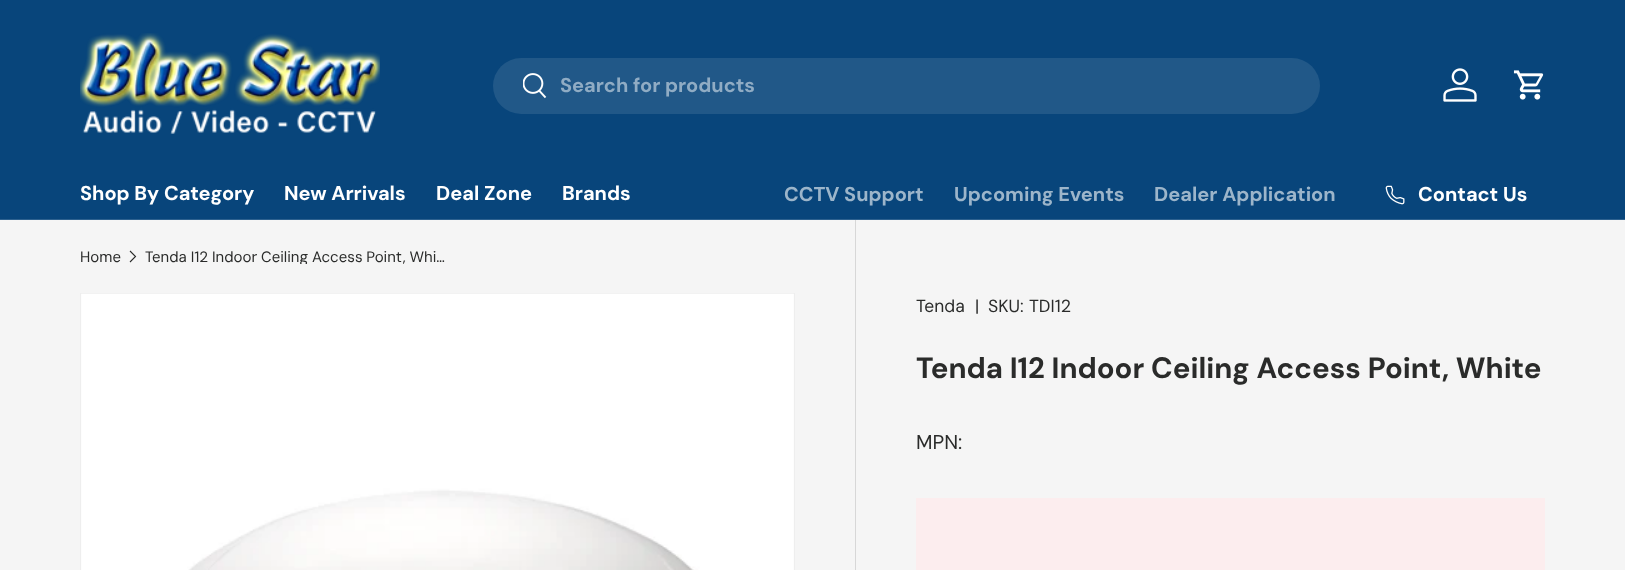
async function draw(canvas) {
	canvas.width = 1625;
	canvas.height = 570;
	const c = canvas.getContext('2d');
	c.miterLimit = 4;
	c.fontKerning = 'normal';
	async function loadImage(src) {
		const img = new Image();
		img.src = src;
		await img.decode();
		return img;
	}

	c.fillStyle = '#f5f5f5';
	c.fillRect(0, 0, 1625, 570);
	c.fillStyle = '#08457b';
	c.fillRect(0, 0, 1625, 219);
	c.fillStyle = '#2d618f';
	c.fillRect(0, 219, 1625, 1);
	c.drawImage(await loadImage('img1.png'), 80, 33, 300, 101);
	c.fillStyle = '#215888';
	c.beginPath();
	c.roundRect(493, 58, 827, 56, 28);
	c.fill();
	c.drawImage(await loadImage('img2.png'), 523, 73, 24, 26);
	c.font = 'bold 20px "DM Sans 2"';
	c.fillStyle = '#90acc4';
	c.fillText('Search for products', 560, 92);
	c.drawImage(await loadImage('img3.png'), 1443, 68, 34, 34);
	c.drawImage(await loadImage('img4.png'), 1513, 70, 31, 30);
	c.fillStyle = '#fff';
	for (const [text, x, y] of [
		['Shop By Category', 80, 200],
		['New Arrivals', 284, 200],
		['Deal Zone', 436, 200],
		['Brands', 562, 200],
	]) {
		c.fillText(text, x, y);
	}
	c.fillStyle = '#9cb5ca';
	for (const [text, x, y] of [
		['CCTV Support', 784, 201],
		['Upcoming Events', 954, 201],
		['Dealer Application', 1154, 201],
	]) {
		c.fillText(text, x, y);
	}
	c.drawImage(await loadImage('img5.png'), 1385, 185, 20, 20);
	c.fillStyle = '#fff';
	c.fillText('Contact Us', 1418, 201);
	c.font = '15px DM Sans';
	c.fillStyle = '#2a2b2a';
	c.fillText('Home', 80, 262);
	c.beginPath();
	c.moveTo(130, 251);
	c.lineTo(135.5, 256.5);
	c.lineTo(130, 262);
	c.strokeStyle = '#2a2b2a';
	c.lineWidth = 1.1;
	c.stroke();
	c.save();
	c.beginPath();
	c.rect(145, 249, 300, 15);
	c.clip();
	c.wordSpacing = '-0.25px';
	c.fillText('Tenda I12 Indoor Ceiling Access Point, Whi…', 145, 262);
	c.restore();
	c.strokeStyle = '#eee';
	c.lineWidth = 1;
	c.strokeRect(80.5, 293.5, 714, 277);
	c.drawImage(await loadImage('img6.png'), 81, 293, 713, 277);
	c.fillStyle = '#d7d7d7';
	c.fillRect(855, 220, 1, 350);
	c.font = '17.5px DM Sans';
	c.fillStyle = '#2a2b2a';
	for (const [text, x, y] of [
		['Tenda', 916, 312],
		['|', 975, 312],
		['SKU:', 988, 312],
		['TDI12', 1029, 312],
	]) {
		c.fillText(text, x, y);
	}
	c.font = 'bold 29.35px DM Sans';
	c.fillText('Tenda I12 Indoor Ceiling Access Point, White', 916, 378);
	c.font = '20px DM Sans';
	c.fillText('MPN:', 916, 449);
	c.fillStyle = '#fcedee';
	c.fillRect(916, 498, 629, 72);
}

draw(document.querySelector('canvas'));
